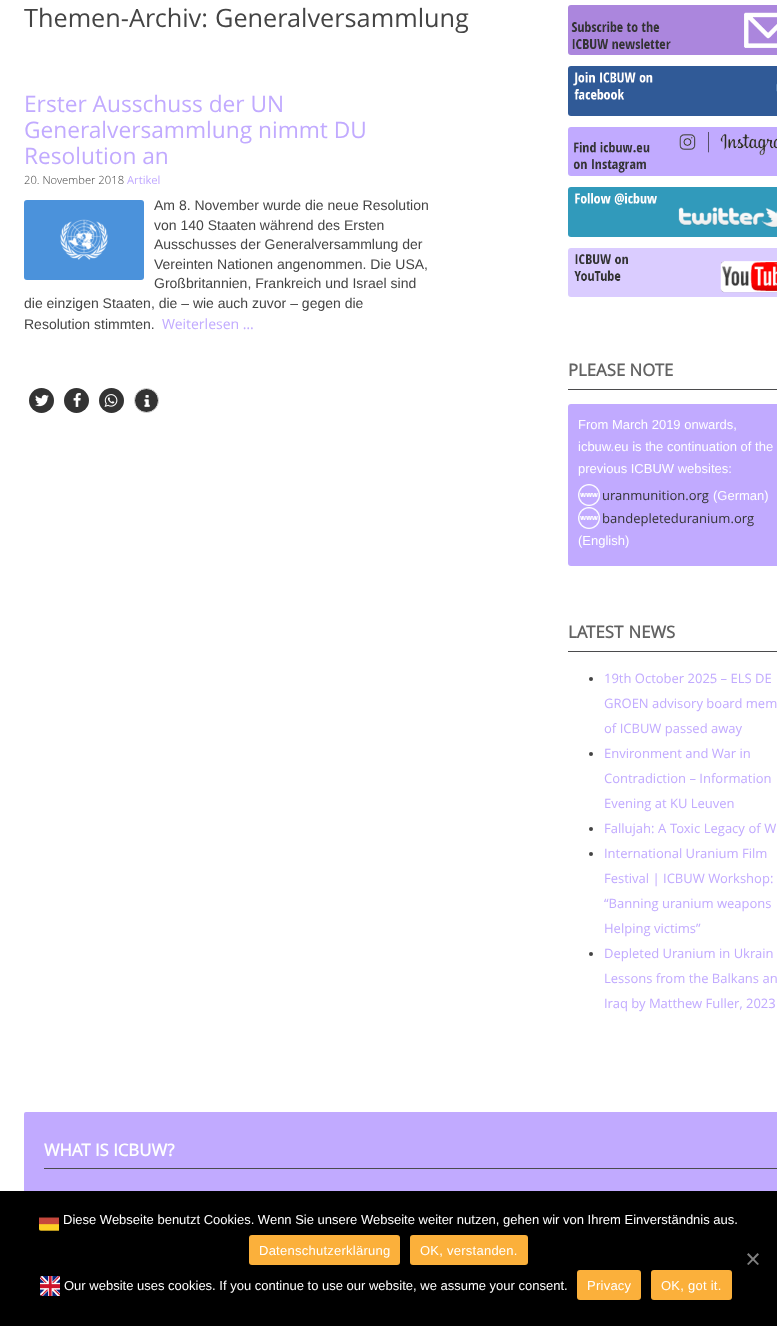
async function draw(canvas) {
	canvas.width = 777;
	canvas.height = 1326;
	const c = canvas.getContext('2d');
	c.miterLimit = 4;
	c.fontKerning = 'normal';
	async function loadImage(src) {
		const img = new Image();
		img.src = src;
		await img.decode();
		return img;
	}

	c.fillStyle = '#fff';
	c.fillRect(0, 0, 777, 1326);
	c.font = '25.25px Open Sans';
	c.fillStyle = '#444';
	c.fillText('Themen-Archiv:', 24, 27);
	c.fillText('Generalversammlung', 215, 27);
	c.font = '22.7px Open Sans';
	c.fillStyle = '#c1aaff';
	for (const [text, x, y] of [
		['Erster Ausschuss der UN', 24, 112],
		['Generalversammlung nimmt DU', 24, 138],
		['Resolution an', 24, 164],
	]) {
		c.fillText(text, x, y);
	}
	c.font = '300 11.25px Open Sans';
	c.fillStyle = '#444';
	c.fillText('20. November 2018', 24, 184);
	c.font = '11.25px Open Sans';
	c.fillStyle = '#c1aaff';
	c.fillText('Artikel', 127, 184);
	c.font = '14px Liberation Sans';
	c.fillStyle = '#444';
	for (const [text, x, y] of [
		['Am 8. November wurde die neue Resolution', 154, 210],
		['von 140 Staaten während des Ersten', 154, 230],
		['Ausschusses der Generalversammlung der', 154, 249],
		['Vereinten Nationen angenommen. Die USA,', 154, 269],
		['Großbritannien, Frankreich und Israel sind', 154, 288],
		['die einzigen Staaten, die – wie auch zuvor – gegen die', 24, 308],
		['Resolution stimmten.', 24, 329],
	]) {
		c.fillText(text, x, y);
	}
	c.font = '14px Open Sans';
	c.fillStyle = '#c1aaff';
	c.fillText('Weiterlesen …', 162, 329);
	c.drawImage(await loadImage('img1.png'), 24, 200, 120, 80);
	c.fillStyle = '#333';
	c.beginPath();
	c.arc(41.5, 400.5, 12.5, 0, 2 * Math.PI);
	c.fill();
	c.drawImage(await loadImage('img2.png'), 35, 394, 14, 13);
	c.beginPath();
	c.arc(76.5, 400.5, 12.5, 0, 2 * Math.PI);
	c.fill();
	c.drawImage(await loadImage('img3.png'), 73, 393, 8, 14);
	c.beginPath();
	c.arc(111.5, 400.5, 12.5, 0, 2 * Math.PI);
	c.fill();
	c.drawImage(await loadImage('img4.png'), 104, 394, 14, 13);
	c.beginPath();
	c.arc(146.5, 400.5, 12, 0, 2 * Math.PI);
	c.fill();
	c.strokeStyle = '#ddd';
	c.stroke();
	c.drawImage(await loadImage('img5.png'), 144, 395, 6, 12);
	c.drawImage(await loadImage('img6.png'), 568, 5, 209, 50);
	c.drawImage(await loadImage('img7.png'), 568, 66, 209, 50);
	c.drawImage(await loadImage('img8.png'), 568, 127, 209, 49);
	c.drawImage(await loadImage('img9.png'), 568, 187, 209, 50);
	c.drawImage(await loadImage('img10.png'), 568, 248, 209, 49);
	c.fillStyle = '#4b4b4d';
	c.fillRect(568, 389, 209, 1);
	c.font = 'bold 16.75px Open Sans';
	c.fillStyle = '#636363';
	c.fillText('PLEASE NOTE', 568, 376);
	c.fillStyle = '#c1aaff';
	c.beginPath();
	c.roundRect(568, 404, 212, 162, 3);
	c.fill();
	c.font = '13px Liberation Sans';
	c.fillStyle = '#fff';
	for (const [text, x, y] of [
		['From March 2019 onwards,', 578, 429],
		['icbuw.eu is the continuation of the', 578, 451],
		['previous ICBUW websites:', 578, 473],
	]) {
		c.fillText(text, x, y);
	}
	c.drawImage(await loadImage('img11.png'), 578, 484, 22, 22);
	c.font = '13px Open Sans';
	c.fillStyle = '#333';
	c.fillText('uranmunition.org', 602, 500);
	c.font = '13px Liberation Sans';
	c.fillStyle = '#fff';
	c.fillText('(German)', 713, 500);
	c.drawImage(await loadImage('img11.png'), 578, 507, 22, 22);
	c.font = '13px Open Sans';
	c.fillStyle = '#333';
	c.fillText('bandepleteduranium.org', 602, 523);
	c.font = '13px Liberation Sans';
	c.fillStyle = '#fff';
	c.fillText('(English)', 578, 545);
	c.fillStyle = '#4b4b4d';
	c.fillRect(568, 651, 209, 1);
	c.wordSpacing = '1px';
	c.font = 'bold 16.75px Open Sans';
	c.fillStyle = '#636363';
	c.fillText('LATEST NEWS', 568, 638);
	c.fillStyle = '#444';
	c.beginPath();
	c.arc(591, 679, 2, 0, 2 * Math.PI);
	c.fill();
	c.wordSpacing = '0px';
	c.font = '13px Open Sans';
	c.fillStyle = '#c1aaff';
	for (const [text, x, y] of [
		['19th October 2025 – ELS DE', 604, 683],
		['GROEN advisory board mem', 604, 708],
		['of ICBUW passed away', 604, 733],
	]) {
		c.fillText(text, x, y);
	}
	c.fillStyle = '#444';
	c.beginPath();
	c.arc(591, 754, 2, 0, 2 * Math.PI);
	c.fill();
	c.fillStyle = '#c1aaff';
	for (const [text, x, y] of [
		['Environment and War in', 604, 758],
		['Contradiction – Information', 604, 783],
		['Evening at KU Leuven', 604, 808],
	]) {
		c.fillText(text, x, y);
	}
	c.fillStyle = '#444';
	c.beginPath();
	c.arc(591, 829, 2, 0, 2 * Math.PI);
	c.fill();
	c.wordSpacing = '0.25px';
	c.fillStyle = '#c1aaff';
	c.fillText('Fallujah: A Toxic Legacy of W', 604, 833);
	c.fillStyle = '#444';
	c.beginPath();
	c.arc(591, 854, 2, 0, 2 * Math.PI);
	c.fill();
	c.wordSpacing = '0px';
	c.fillStyle = '#c1aaff';
	for (const [text, x, y] of [
		['International Uranium Film', 604, 858],
		['Festival | ICBUW Workshop:', 604, 883],
		['“Banning uranium weapons', 604, 908],
		['Helping victims”', 604, 933],
	]) {
		c.fillText(text, x, y);
	}
	c.fillStyle = '#444';
	c.beginPath();
	c.arc(591, 954, 2, 0, 2 * Math.PI);
	c.fill();
	c.fillStyle = '#c1aaff';
	for (const [text, x, y] of [
		['Depleted Uranium in Ukrain', 604, 958],
		['Lessons from the Balkans an', 604, 983],
		['Iraq by Matthew Fuller, 2023', 604, 1008],
	]) {
		c.fillText(text, x, y);
	}
	c.beginPath();
	c.roundRect(24, 1112, 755, 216, 2);
	c.fill();
	c.fillStyle = '#4b4b4d';
	c.fillRect(44, 1168, 733, 1);
	c.font = 'bold 16.75px Open Sans';
	c.fillStyle = '#fff';
	c.fillText('WHAT IS ICBUW?', 44, 1156);
	c.fillStyle = '#000';
	c.fillRect(0, 1191, 777, 135);
	c.drawImage(await loadImage('img12.png'), 39, 1217, 20, 14);
	c.font = '13px Liberation Sans';
	c.fillStyle = '#fff';
	c.fillText('Diese Webseite benutzt Cookies. Wenn Sie unsere Webseite weiter nutzen, gehen wir von Ihrem Einverständnis aus.', 63, 1224);
	c.fillStyle = '#fbb03b';
	c.beginPath();
	c.roundRect(249, 1235, 151, 30, 3);
	c.fill();
	c.letterSpacing = '0.25px';
	c.fillStyle = '#fff';
	c.fillText('Datenschutzerklärung', 259, 1255);
	c.fillStyle = '#fbb03b';
	c.beginPath();
	c.roundRect(410, 1235, 118, 30, 3);
	c.fill();
	c.fillStyle = '#fff';
	c.fillText('OK, verstanden.', 420, 1255);
	c.drawImage(await loadImage('img13.png'), 40, 1276, 20, 20);
	c.letterSpacing = '0px';
	c.fillText('Our website uses cookies. If you continue to use our website, we assume your consent.', 64, 1290);
	c.fillStyle = '#fbb03b';
	c.beginPath();
	c.roundRect(577, 1270, 64, 30, 3);
	c.fill();
	c.letterSpacing = '0.25px';
	c.fillStyle = '#fff';
	c.fillText('Privacy', 587, 1290);
	c.fillStyle = '#fbb03b';
	c.beginPath();
	c.roundRect(651, 1270, 81, 30, 3);
	c.fill();
	c.fillStyle = '#fff';
	c.fillText('OK, got it.', 661, 1290);
	c.fillStyle = '#808080';
	c.beginPath();
	c.moveTo(757.5, 1253);
	c.lineTo(759, 1254.5);
	c.lineTo(748.5, 1265);
	c.lineTo(747, 1264);
	c.closePath();
	c.fill();
	c.beginPath();
	c.moveTo(747, 1254.5);
	c.lineTo(748.5, 1253);
	c.lineTo(759, 1264);
	c.lineTo(757.5, 1265);
	c.closePath();
	c.fill();
}

draw(document.querySelector('canvas'));
